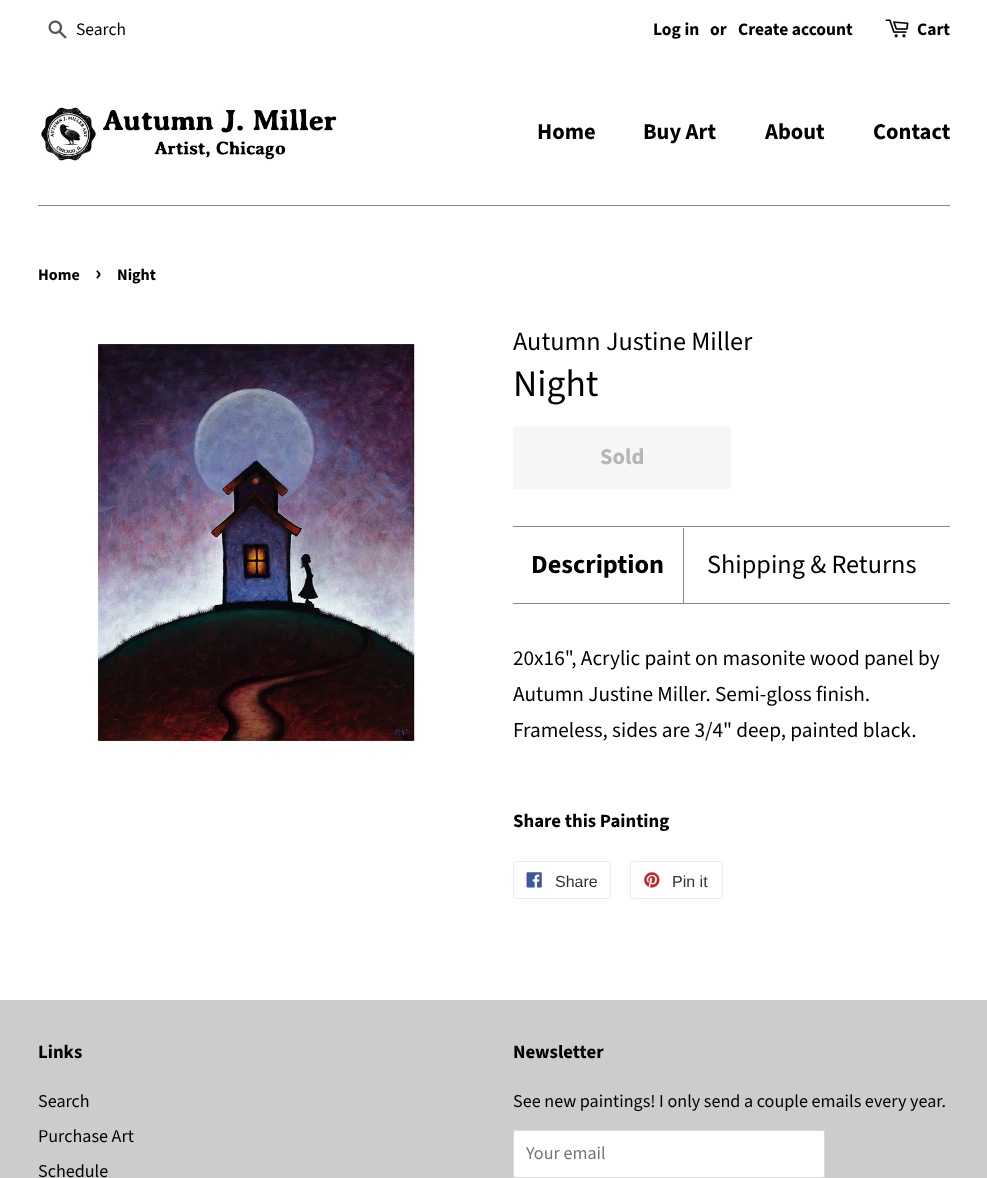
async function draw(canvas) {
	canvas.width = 987;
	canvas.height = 1178;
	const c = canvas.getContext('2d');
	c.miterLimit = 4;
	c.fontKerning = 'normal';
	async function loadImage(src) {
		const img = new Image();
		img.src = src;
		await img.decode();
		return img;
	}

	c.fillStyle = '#fff';
	c.fillRect(0, 0, 987, 1178);
	c.drawImage(await loadImage('img1.png'), 48, 20, 19, 19);
	c.font = '17.5px Source Sans Pro';
	c.fillStyle = '#000';
	c.fillText('Search', 76, 35);
	c.font = 'bold 17.5px Source Sans Pro';
	for (const [text, x, y] of [
		['Log in', 653, 35],
		['or', 710, 35],
		['Create account', 738, 35],
	]) {
		c.fillText(text, x, y);
	}
	c.drawImage(await loadImage('img2.png'), 885, 19, 24, 19);
	c.fillText('Cart', 917, 35);
	c.fillStyle = '#888';
	c.fillRect(38, 205, 912, 1);
	c.drawImage(await loadImage('img3.png'), 41, 107, 296, 54);
	c.font = 'bold 22.5px Source Sans Pro';
	c.fillStyle = '#000';
	for (const [text, x, y] of [
		['Home', 537, 139],
		['Buy Art', 643, 139],
		['About', 765, 139],
		['Contact', 873, 139],
	]) {
		c.fillText(text, x, y);
	}
	c.font = 'bold 16px Source Sans Pro';
	c.fillText('Home', 38, 280);
	c.font = 'bold 22px Source Sans Pro';
	c.fillText('›', 95, 280);
	c.font = 'bold 16px Source Sans Pro';
	c.fillText('Night', 117, 280);
	c.drawImage(await loadImage('img4.png'), 97, 343, 319, 402);
	c.font = '26.25px Source Sans Pro';
	c.fillText('Autumn Justine Miller', 513, 350);
	c.font = '37.5px Source Sans Pro';
	c.fillText('Night', 513, 396);
	c.fillStyle = '#f6f6f6';
	c.beginPath();
	c.roundRect(513, 426, 218, 63, 2.5);
	c.fill();
	c.font = 'bold 22.5px Source Sans Pro';
	c.fillStyle = '#b6b6b6';
	c.fillText('Sold', 600, 464);
	for (const [x, y, w, h, color] of [
		[513, 526, 437, 1, '#888'],
		[513, 603, 437, 1, '#888'],
		[683, 528, 1, 75, '#888'],
	]) {
		c.fillStyle = color;
		c.fillRect(x, y, w, h);
	}
	c.font = 'bold 26.25px Source Sans Pro';
	c.fillStyle = '#000';
	c.fillText('Description', 531, 573);
	c.font = '26.25px Source Sans Pro';
	c.fillText('Shipping & Returns', 707, 573);
	c.font = '21.25px Source Sans Pro';
	for (const [text, x, y] of [
		['20x16", Acrylic paint on masonite wood panel by', 513, 665],
		['Autumn Justine Miller. Semi-gloss finish.', 513, 701],
		['Frameless, sides are 3/4" deep, painted black.', 513, 737],
	]) {
		c.fillText(text, x, y);
	}
	c.font = 'bold 18.75px Source Sans Pro';
	c.fillText('Share this Painting', 513, 827);
	c.beginPath();
	c.roundRect(513.5, 861.5, 97, 37, 2);
	c.strokeStyle = '#ececec';
	c.stroke();
	c.drawImage(await loadImage('img5.png'), 526, 872, 16, 16);
	c.font = '16px Liberation Sans';
	c.fillStyle = '#333';
	c.fillText('Share', 555, 887);
	c.beginPath();
	c.roundRect(630.5, 861.5, 92, 37, 2);
	c.stroke();
	c.drawImage(await loadImage('img6.png'), 644, 872, 16, 16);
	c.fillText('Pin it', 672, 887);
	c.fillStyle = '#ccc';
	c.fillRect(0, 1000, 987, 178);
	c.font = 'bold 18.75px Source Sans Pro';
	c.fillStyle = '#000';
	c.fillText('Links', 38, 1058);
	c.font = '18.1px Source Sans Pro';
	for (const [text, x, y] of [
		['Search', 38, 1107],
		['Purchase Art', 38, 1142],
		['Schedule', 38, 1177],
	]) {
		c.fillText(text, x, y);
	}
	c.font = 'bold 18.75px Source Sans Pro';
	c.fillText('Newsletter', 513, 1058);
	c.font = '18.1px Source Sans Pro';
	c.fillText('See new paintings! I only send a couple emails every year.', 513, 1107);
	c.fillStyle = '#fff';
	c.beginPath();
	c.roundRect(513, 1130, 312, 48, 2.5);
	c.fill();
	c.beginPath();
	c.roundRect(513.5, 1130.5, 311, 47, 2);
	c.strokeStyle = '#00000026';
	c.stroke();
	c.fillStyle = '#757575';
	c.fillText('Your email', 526, 1159);
}

draw(document.querySelector('canvas'));
